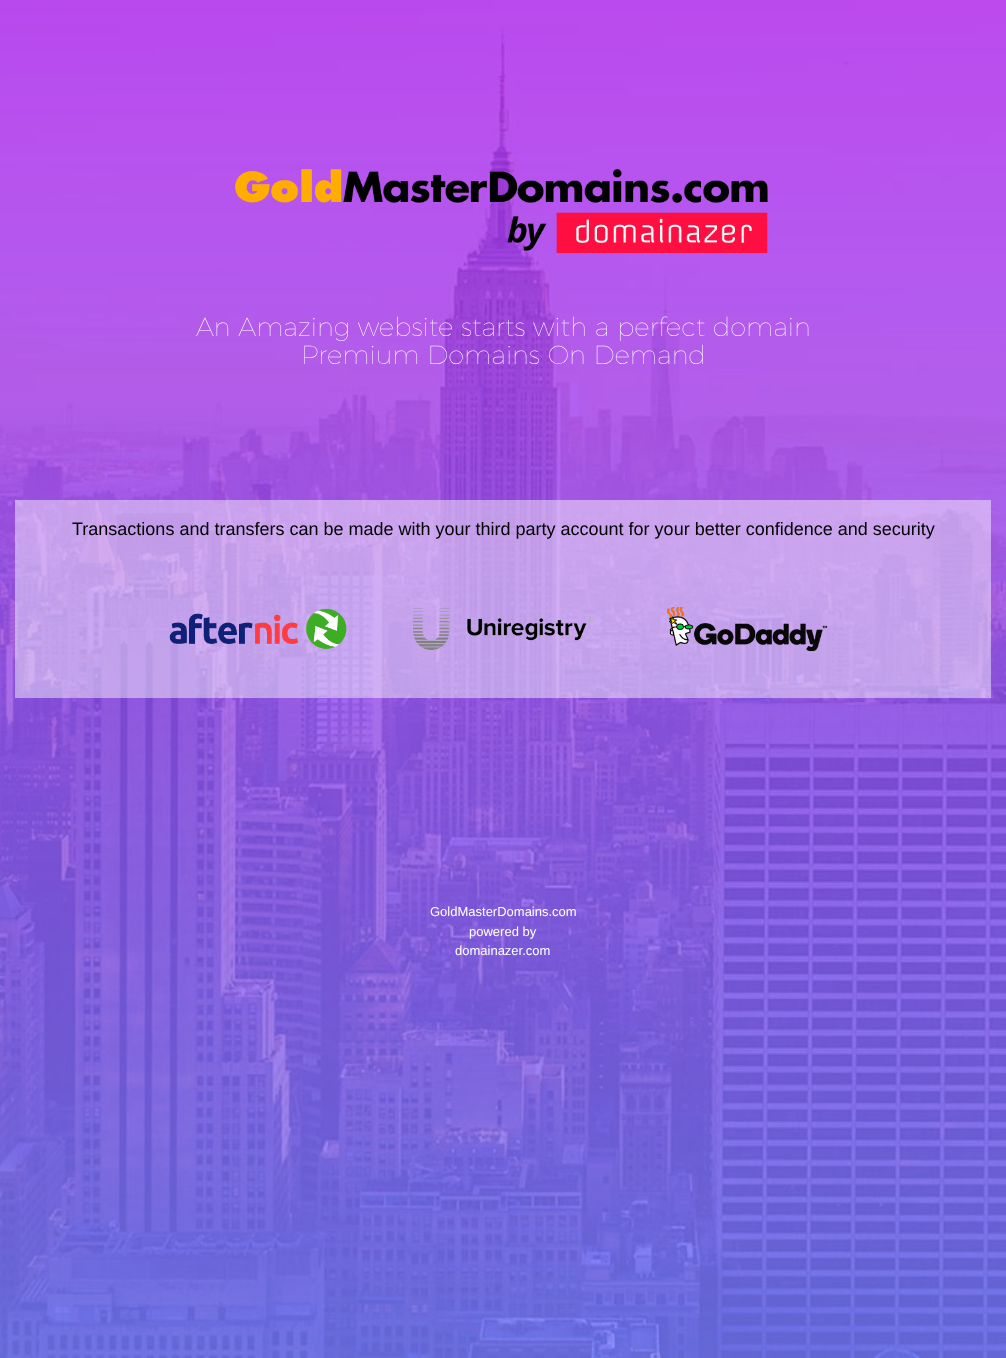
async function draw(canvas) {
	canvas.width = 1006;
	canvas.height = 1358;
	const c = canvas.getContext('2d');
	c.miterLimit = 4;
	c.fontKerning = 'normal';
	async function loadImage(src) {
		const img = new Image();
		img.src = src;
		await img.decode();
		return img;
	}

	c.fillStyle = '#fff';
	c.fillRect(0, 0, 1006, 1358);
	c.drawImage(await loadImage('img1.png'), 0, 0, 1006, 1358);
	c.drawImage(await loadImage('img2.png'), 235, 169, 533, 84);
	c.font = '100 26px Montserrat';
	c.fillText('An Amazing website starts with a perfect domain', 196, 336);
	c.fillText('Premium Domains On Demand', 301, 364);
	c.fillStyle = '#ffffff75';
	c.fillRect(15, 500, 976, 198);
	c.font = '18px Liberation Sans';
	c.fillStyle = '#000';
	c.fillText('Transactions and transfers can be made with your third party account for your better confidence and security', 72, 535);
	c.drawImage(await loadImage('img3.png'), 169, 608, 178, 42);
	c.drawImage(await loadImage('img4.png'), 413, 608, 180, 42);
	c.drawImage(await loadImage('img5.png'), 667, 606, 161, 46);
	c.font = '13px Liberation Sans';
	c.fillStyle = '#fff';
	for (const [text, x, y] of [
		['GoldMasterDomains.com', 430, 916],
		['powered by', 469, 936],
		['domainazer.com', 455, 955],
	]) {
		c.fillText(text, x, y);
	}
}

draw(document.querySelector('canvas'));
